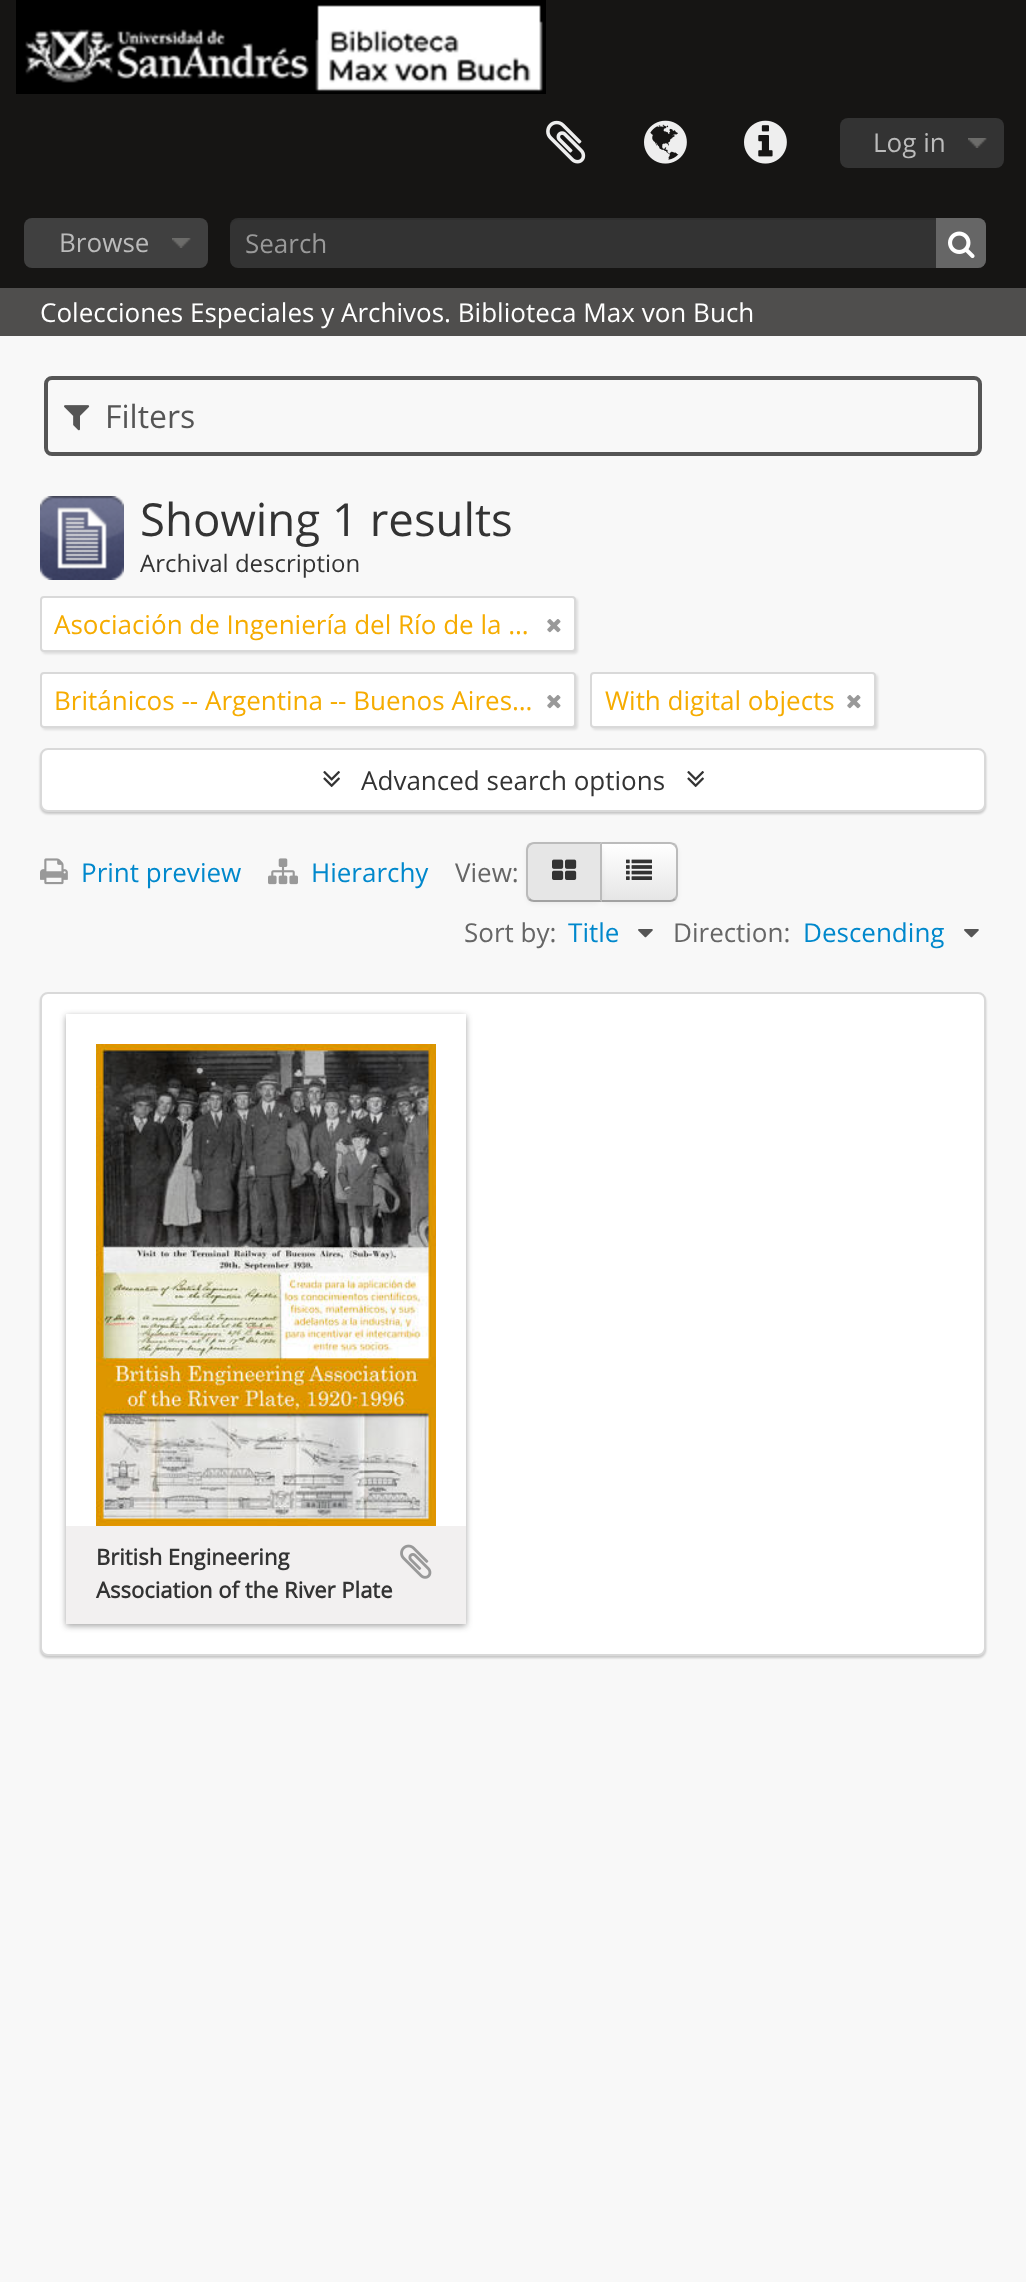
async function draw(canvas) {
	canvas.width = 1026;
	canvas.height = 2282;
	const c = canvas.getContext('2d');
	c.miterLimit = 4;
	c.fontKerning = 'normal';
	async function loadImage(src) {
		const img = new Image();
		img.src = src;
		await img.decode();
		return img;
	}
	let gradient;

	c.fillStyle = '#f8f8f8';
	c.fillRect(0, 0, 1026, 2282);
	c.fillStyle = '#161514';
	c.fillRect(0, 0, 1026, 288);
	c.drawImage(await loadImage('img1.png'), 16, 0, 530, 94);
	c.drawImage(await loadImage('img2.png'), 546, 120, 40, 44);
	c.drawImage(await loadImage('img3.png'), 644, 120, 43, 44);
	c.drawImage(await loadImage('img4.png'), 744, 120, 43, 44);
	c.fillStyle = '#333';
	c.beginPath();
	c.roundRect(840, 118, 164, 50, 8);
	c.fill();
	c.drawImage(await loadImage('img5.png'), 968, 138, 19, 10);
	c.font = '26px Open Sans';
	c.fillStyle = '#bbb';
	c.fillText('Log in', 873, 152);
	c.fillStyle = '#404040';
	c.beginPath();
	c.roundRect(24, 218, 184, 50, 8);
	c.fill();
	c.drawImage(await loadImage('img6.png'), 172, 238, 19, 10);
	c.fillStyle = '#bbb';
	c.fillText('Browse', 59, 252);
	c.fillStyle = '#333';
	c.beginPath();
	c.roundRect(230, 218, 756, 50, 8);
	c.fill();
	c.fillStyle = '#00000012';
	c.beginPath();
	c.moveTo(238, 220);
	c.lineTo(978, 220);
	c.bezierCurveTo(982, 220, 986, 224, 986, 228);
	c.bezierCurveTo(986, 223, 984, 218, 978, 218);
	c.lineTo(238, 218);
	c.bezierCurveTo(232, 218, 230, 223, 230, 228);
	c.bezierCurveTo(230, 224, 234, 220, 238, 220);
	c.closePath();
	c.fill();
	c.fillStyle = '#999';
	c.fillText('Search', 245, 253);
	c.fillStyle = '#666';
	c.beginPath();
	c.roundRect(936, 218, 50, 50, [0, 8, 8, 0]);
	c.fill();
	c.drawImage(await loadImage('img7.png'), 948, 231, 27, 28);
	c.fillStyle = '#4f4e4d';
	c.fillRect(0, 288, 1026, 48);
	c.fillStyle = '#fff';
	c.fillText('Colecciones Especiales y Archivos. Biblioteca Max von Buch', 40, 322);
	c.beginPath();
	c.roundRect(46, 378, 934, 76, 6);
	c.strokeStyle = '#555';
	c.lineWidth = 4;
	c.stroke();
	c.drawImage(await loadImage('img8.png'), 64, 405, 26, 26);
	c.font = '32px Open Sans';
	c.fillStyle = '#555';
	c.fillText('Filters', 105, 428);
	c.drawImage(await loadImage('img9.png'), 40, 496, 84, 84);
	c.font = '45.5px Open Sans';
	c.fillStyle = '#333';
	c.fillText('Showing 1 results', 140, 536);
	c.font = '24px Open Sans';
	c.fillText('Archival description', 140, 572);
	c.fillStyle = '#0000001a';
	c.filter = 'blur(1px)';
	c.beginPath();
	c.roundRect(42, 598, 536, 56, 4);
	c.fill();
	c.filter = 'none';
	c.fillStyle = '#fff';
	c.beginPath();
	c.roundRect(41, 597, 534, 54, 3);
	c.fill();
	c.strokeStyle = '#d9d9d9';
	c.lineWidth = 2;
	c.stroke();
	c.font = '26px Open Sans';
	c.fillStyle = '#f6ac00';
	c.fillText('Asociación de Ingeniería del Río de la …', 54, 634);
	c.drawImage(await loadImage('img10.png'), 547, 619, 14, 14);
	c.fillStyle = '#0000001a';
	c.filter = 'blur(1px)';
	c.beginPath();
	c.roundRect(42, 674, 536, 56, 4);
	c.fill();
	c.filter = 'none';
	c.fillStyle = '#fff';
	c.beginPath();
	c.roundRect(41, 673, 534, 54, 3);
	c.fill();
	c.stroke();
	c.fillStyle = '#f6ac00';
	c.fillText('Británicos -- Argentina -- Buenos Aires…', 54, 710);
	c.drawImage(await loadImage('img10.png'), 547, 695, 14, 14);
	c.fillStyle = '#0000001a';
	c.filter = 'blur(1px)';
	c.beginPath();
	c.roundRect(592, 674, 286, 56, 4);
	c.fill();
	c.filter = 'none';
	c.fillStyle = '#fff';
	c.beginPath();
	c.roundRect(591, 673, 284, 54, 3);
	c.fill();
	c.stroke();
	c.fillStyle = '#f6ac00';
	c.fillText('With digital objects', 605, 710);
	c.drawImage(await loadImage('img10.png'), 847, 695, 14, 14);
	c.fillStyle = '#00000033';
	c.filter = 'blur(1px)';
	c.beginPath();
	c.roundRect(40, 750, 946, 64, 8);
	c.fill();
	c.filter = 'none';
	c.fillStyle = '#fff';
	c.beginPath();
	c.roundRect(41, 749, 944, 62, 7);
	c.fill();
	c.stroke();
	c.drawImage(await loadImage('img11.png'), 323, 771, 17, 17);
	c.fillStyle = '#333';
	c.fillText('Advanced search options', 361, 790);
	c.drawImage(await loadImage('img11.png'), 687, 771, 17, 17);
	c.drawImage(await loadImage('img12.png'), 40, 858, 28, 27);
	c.fillStyle = '#08c';
	c.fillText('Print preview', 81, 882);
	c.drawImage(await loadImage('img13.png'), 268, 858, 30, 27);
	c.fillText('Hierarchy', 311, 882);
	c.fillStyle = '#666';
	c.fillText('View:', 455, 882);
	c.fillStyle = '#0000000d';
	c.filter = 'blur(2px)';
	c.beginPath();
	c.roundRect(600, 844, 78, 60, 8);
	c.fill();
	c.filter = 'none';
	c.save();
	c.beginPath();
	c.roundRect(600, 842, 78, 60, [0, 8, 8, 0]);
	c.clip();
	gradient = c.createLinearGradient(639, 844, 639, 900);
	gradient.addColorStop(0, '#fff');
	gradient.addColorStop(1, '#e6e6e6');
	c.fillStyle = gradient;
	c.fillRect(602, 844, 76, 56);
	c.restore();
	c.fillStyle = '#bbb';
	c.beginPath();
	c.moveTo(600, 842);
	c.lineTo(602, 844);
	c.lineTo(670, 844);
	c.bezierCurveTo(672, 844, 673, 845, 674, 846);
	c.lineTo(676, 844);
	c.bezierCurveTo(674, 843, 672, 842, 670, 842);
	c.closePath();
	c.fill();
	c.beginPath();
	c.moveTo(678, 894);
	c.lineTo(678, 850);
	c.bezierCurveTo(678, 848, 677, 846, 676, 844);
	c.lineTo(674, 846);
	c.bezierCurveTo(675, 847, 676, 848, 676, 850);
	c.lineTo(676, 894);
	c.bezierCurveTo(676, 896, 675, 897, 674, 898);
	c.lineTo(676, 900);
	c.bezierCurveTo(677, 898, 678, 896, 678, 894);
	c.closePath();
	c.fill();
	c.fillStyle = '#a2a2a2';
	c.beginPath();
	c.moveTo(670, 902);
	c.bezierCurveTo(672, 902, 674, 901, 676, 900);
	c.lineTo(674, 898);
	c.bezierCurveTo(673, 899, 672, 900, 670, 900);
	c.lineTo(602, 900);
	c.lineTo(600, 902);
	c.closePath();
	c.fill();
	c.fillStyle = '#0000000d';
	c.filter = 'blur(2px)';
	c.beginPath();
	c.roundRect(526, 844, 76, 60, 8);
	c.fill();
	c.filter = 'none';
	c.fillStyle = '#e6e6e6';
	c.beginPath();
	c.roundRect(526, 842, 76, 60, [8, 0, 0, 8]);
	c.fill();
	c.fillStyle = '#bbb';
	c.beginPath();
	c.moveTo(534, 842);
	c.bezierCurveTo(532, 842, 530, 843, 528, 844);
	c.lineTo(530, 846);
	c.bezierCurveTo(531, 845, 532, 844, 534, 844);
	c.lineTo(600, 844);
	c.lineTo(602, 842);
	c.closePath();
	c.fill();
	c.beginPath();
	c.moveTo(602, 842);
	c.lineTo(600, 844);
	c.lineTo(600, 900);
	c.lineTo(602, 902);
	c.closePath();
	c.fill();
	c.fillStyle = '#a2a2a2';
	c.beginPath();
	c.moveTo(602, 902);
	c.lineTo(600, 900);
	c.lineTo(534, 900);
	c.bezierCurveTo(532, 900, 531, 899, 530, 898);
	c.lineTo(528, 900);
	c.bezierCurveTo(530, 901, 532, 902, 534, 902);
	c.closePath();
	c.fill();
	c.fillStyle = '#bbb';
	c.beginPath();
	c.moveTo(526, 850);
	c.lineTo(526, 894);
	c.bezierCurveTo(526, 896, 527, 898, 528, 900);
	c.lineTo(530, 898);
	c.bezierCurveTo(529, 897, 528, 896, 528, 894);
	c.lineTo(528, 850);
	c.bezierCurveTo(528, 848, 529, 847, 530, 846);
	c.lineTo(528, 844);
	c.bezierCurveTo(527, 846, 526, 848, 526, 850);
	c.closePath();
	c.fill();
	c.drawImage(await loadImage('img14.png'), 552, 859, 25, 21);
	c.drawImage(await loadImage('img15.png'), 626, 859, 26, 21);
	c.fillStyle = '#666';
	c.fillText('Sort by:', 464, 942);
	c.fillStyle = '#08c';
	c.fillText('Title', 568, 942);
	c.drawImage(await loadImage('img16.png'), 638, 929, 15, 9);
	c.fillStyle = '#666';
	c.fillText('Direction:', 673, 942);
	c.fillStyle = '#08c';
	c.fillText('Descending', 803, 942);
	c.drawImage(await loadImage('img16.png'), 964, 929, 15, 9);
	c.fillStyle = '#00000033';
	c.filter = 'blur(1px)';
	c.beginPath();
	c.roundRect(40, 994, 946, 664, 8);
	c.fill();
	c.filter = 'none';
	c.fillStyle = '#fff';
	c.beginPath();
	c.roundRect(41, 993, 944, 662, 7);
	c.fill();
	c.stroke();
	c.save();
	c.beginPath();
	c.moveTo(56, 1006);
	c.lineTo(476, 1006);
	c.lineTo(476, 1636);
	c.lineTo(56, 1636);
	c.closePath();
	c.moveTo(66, 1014);
	c.lineTo(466, 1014);
	c.lineTo(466, 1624);
	c.lineTo(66, 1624);
	c.closePath();
	c.clip('evenodd');
	c.fillStyle = '#19191966';
	c.filter = 'blur(3px)';
	c.beginPath();
	c.rect(66, 1016, 400, 610);
	c.fill();
	c.filter = 'none';
	c.restore();
	c.drawImage(await loadImage('img17.png'), 96, 1044, 340, 482);
	c.fillStyle = '#f2f0f0';
	c.fillRect(66, 1526, 400, 98);
	c.font = 'bold 22px Open Sans';
	c.fillStyle = '#333';
	c.fillText('British Engineering', 96, 1565);
	c.drawImage(await loadImage('img18.png'), 400, 1544, 32, 35);
	c.fillText('Association of the River Plate', 96, 1598);
}

draw(document.querySelector('canvas'));
